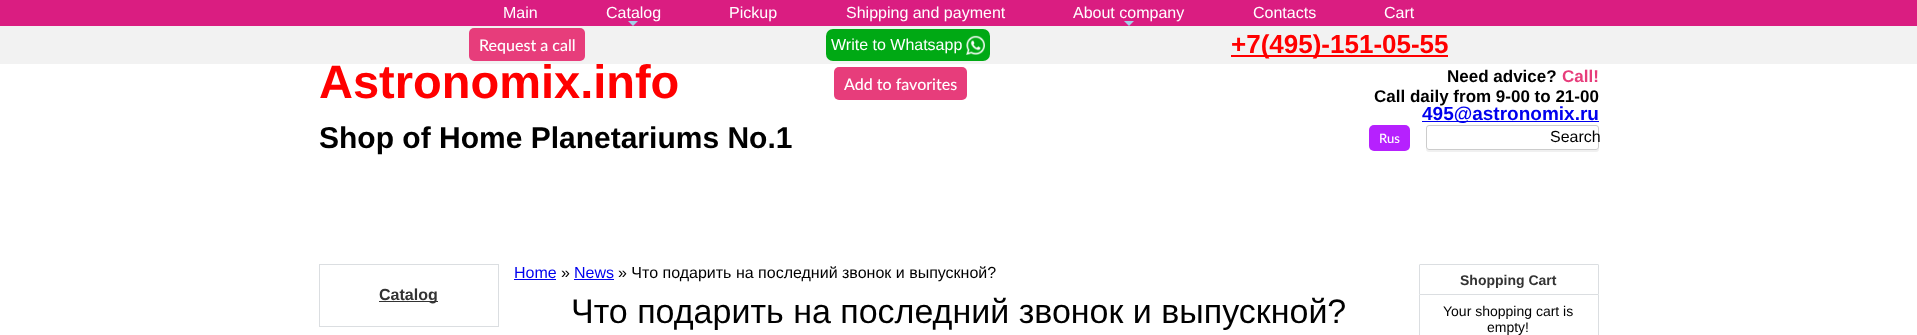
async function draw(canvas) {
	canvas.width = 1917;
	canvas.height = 335;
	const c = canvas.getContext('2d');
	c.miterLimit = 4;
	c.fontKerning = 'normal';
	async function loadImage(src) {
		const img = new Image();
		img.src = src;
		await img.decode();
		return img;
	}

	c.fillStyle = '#fff';
	c.fillRect(0, 0, 1917, 335);
	c.font = 'bold 47px Liberation Sans';
	c.fillStyle = '#f00';
	c.fillText('Astronomix.info', 319, 98);
	c.fillStyle = '#f2f2f2';
	c.fillRect(0, 26, 1917, 38);
	c.fillStyle = '#da1d81';
	c.fillRect(0, 0, 1917, 26);
	c.font = '16px Liberation Sans';
	c.fillStyle = '#fff';
	c.fillText('Main', 503, 18);
	c.fillText('Catalog', 606, 18);
	c.fillStyle = '#a1d1e8';
	c.beginPath();
	c.moveTo(628, 21);
	c.lineTo(638, 21);
	c.lineTo(633, 26);
	c.closePath();
	c.fill();
	c.fillStyle = '#fff';
	for (const [text, x, y] of [
		['Pickup', 729, 18],
		['Shipping and payment', 846, 18],
		['About company', 1073, 18],
	]) {
		c.fillText(text, x, y);
	}
	c.fillStyle = '#a1d1e8';
	c.beginPath();
	c.moveTo(1124, 21);
	c.lineTo(1134, 21);
	c.lineTo(1129, 26);
	c.closePath();
	c.fill();
	c.fillStyle = '#fff';
	c.fillText('Contacts', 1253, 18);
	c.fillText('Cart', 1384, 18);
	c.fillStyle = '#e73d7b';
	c.beginPath();
	c.roundRect(469, 28, 116, 33, 5);
	c.fill();
	c.font = '500 16px Lato';
	c.fillStyle = '#fff';
	c.fillText('Request a call', 479, 51);
	c.fillStyle = '#00a914';
	c.beginPath();
	c.roundRect(826, 29, 164, 32, 7);
	c.fill();
	c.font = '16px Liberation Sans';
	c.fillStyle = '#fff';
	c.fillText('Write to Whatsapp', 831, 50);
	c.drawImage(await loadImage('img1.png'), 966, 35, 19, 20);
	c.fillStyle = '#f00';
	c.fillRect(1231, 55, 217, 2);
	c.font = 'bold 26px Liberation Sans';
	c.fillText('+7(495)-151-05-55', 1231, 53);
	c.fillStyle = '#e73d7b';
	c.beginPath();
	c.roundRect(834, 67, 133, 33, 5);
	c.fill();
	c.font = '500 16px Lato';
	c.fillStyle = '#fff';
	c.fillText('Add to favorites', 844, 90);
	c.font = 'bold 17px Liberation Sans';
	c.fillStyle = '#000';
	c.fillText('Need advice?', 1447, 82);
	c.fillStyle = '#e73d7b';
	c.fillText('Call!', 1562, 82);
	c.fillStyle = '#000';
	c.fillText('Call daily from 9-00 to 21-00', 1374, 102);
	c.fillStyle = '#00e';
	c.fillRect(1422, 121, 177, 1);
	c.font = 'bold 19px Liberation Sans';
	c.fillText('495@astronomix.ru', 1422, 120);
	c.font = 'bold 30px Liberation Sans';
	c.fillStyle = '#000';
	c.fillText('Shop of Home Planetariums No.1', 319, 148);
	c.fillStyle = '#b621fe';
	c.beginPath();
	c.roundRect(1369, 125, 41, 26, 5);
	c.fill();
	c.font = '500 13px Lato';
	c.fillStyle = '#fff';
	c.fillText('Rus', 1379, 143);
	c.fillStyle = '#f0f0f0';
	c.beginPath();
	c.moveTo(1426, 147);
	c.lineTo(1426, 149);
	c.bezierCurveTo(1426, 151, 1427, 152, 1429, 152);
	c.lineTo(1596, 152);
	c.bezierCurveTo(1598, 152, 1599, 151, 1599, 149);
	c.lineTo(1599, 147);
	c.bezierCurveTo(1599, 149, 1598, 150, 1596, 150);
	c.lineTo(1429, 150);
	c.bezierCurveTo(1427, 150, 1426, 149, 1426, 147);
	c.closePath();
	c.fill();
	c.beginPath();
	c.roundRect(1426.5, 125.5, 172, 24, 2.5);
	c.strokeStyle = '#ccc';
	c.stroke();
	c.font = '16px Liberation Sans';
	c.fillStyle = '#000';
	c.fillText('Search', 1550, 142);
	c.strokeStyle = '#dbdee1';
	c.strokeRect(319.5, 264.5, 179, 62);
	c.fillStyle = '#333';
	c.fillRect(379, 301, 59, 1);
	c.font = 'bold 16px Liberation Sans';
	c.fillText('Catalog', 379, 300);
	c.font = '16px Liberation Sans';
	c.fillStyle = '#00e';
	c.fillText('Home', 514, 278);
	c.fillRect(514, 279, 42, 1);
	c.fillStyle = '#000';
	c.fillText('»', 561, 278);
	c.fillStyle = '#00e';
	c.fillText('News', 574, 278);
	c.fillRect(574, 279, 40, 1);
	c.fillStyle = '#000';
	c.fillText('» Что подарить на последний звонок и выпускной?', 618, 278);
	c.font = '34px Liberation Sans';
	c.fillText('Что подарить на последний звонок и выпускной?', 571, 323);
	c.beginPath();
	c.roundRect(1419.5, 264.5, 179, 30, [0.5, 0.5, 0, 0]);
	c.stroke();
	c.font = 'bold 14px Liberation Sans';
	c.fillStyle = '#333';
	c.fillText('Shopping Cart', 1460, 285);
	c.fillStyle = '#dbdee1';
	c.beginPath();
	c.moveTo(1419, 295);
	c.lineTo(1599, 295);
	c.lineTo(1599, 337);
	c.bezierCurveTo(1599, 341, 1596, 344, 1592, 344);
	c.lineTo(1426, 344);
	c.bezierCurveTo(1422, 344, 1419, 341, 1419, 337);
	c.closePath();
	c.moveTo(1420, 295);
	c.lineTo(1598, 295);
	c.lineTo(1598, 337);
	c.bezierCurveTo(1598, 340, 1595, 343, 1592, 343);
	c.lineTo(1426, 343);
	c.bezierCurveTo(1423, 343, 1420, 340, 1420, 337);
	c.closePath();
	c.fill('evenodd');
	c.font = '14px Liberation Sans';
	c.fillStyle = '#000';
	c.fillText('Your shopping cart is', 1443, 316);
	c.fillText('empty!', 1487, 332);
}

draw(document.querySelector('canvas'));
